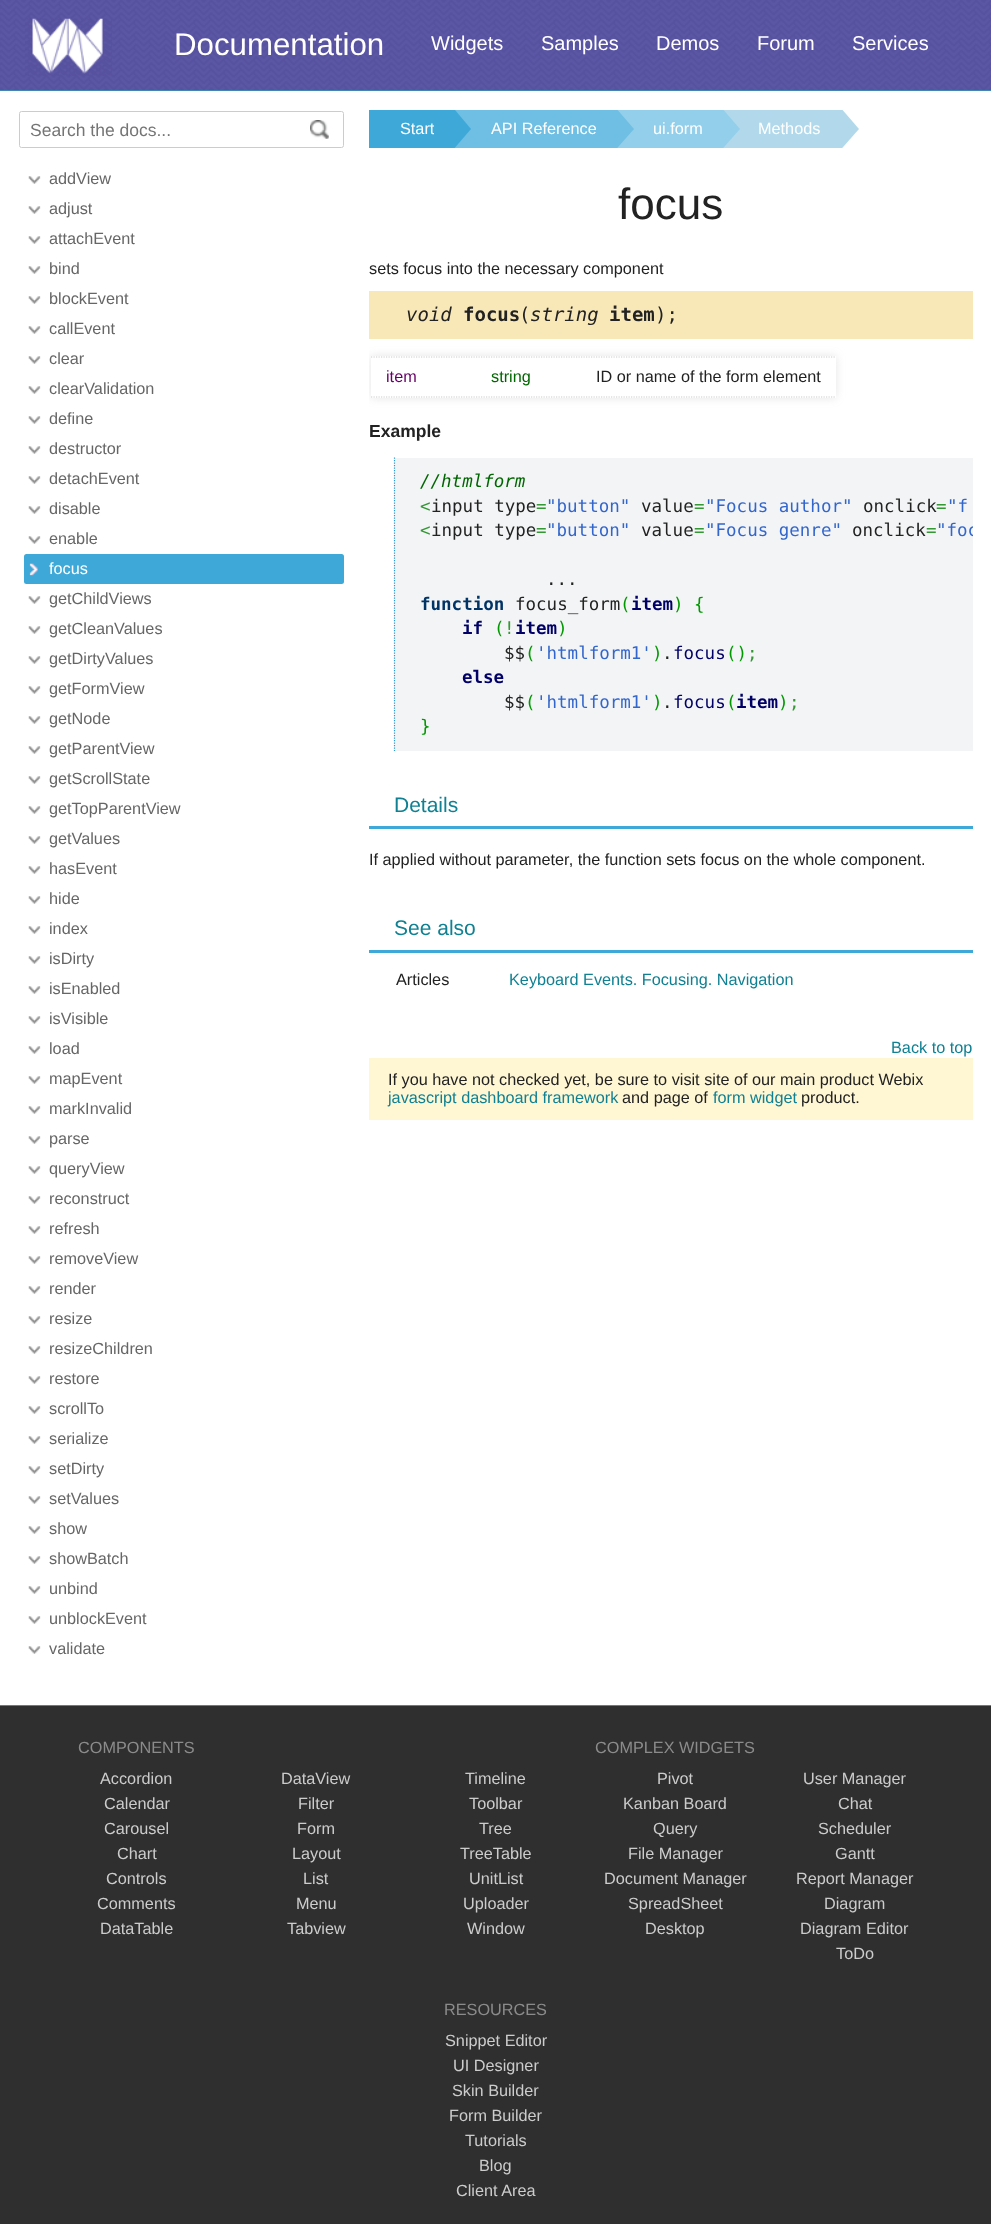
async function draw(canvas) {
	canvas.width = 991;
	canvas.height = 2224;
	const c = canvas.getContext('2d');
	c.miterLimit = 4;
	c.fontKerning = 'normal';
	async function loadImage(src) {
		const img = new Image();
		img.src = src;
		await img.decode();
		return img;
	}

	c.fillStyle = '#4287b0';
	c.fillRect(0, 0, 991, 2224);
	c.drawImage(await loadImage('img1.png'), 0, 0, 991, 90);
	c.drawImage(await loadImage('img2.png'), 25, 18, 87, 58);
	c.font = '31.25px Liberation Sans';
	c.fillStyle = '#fff';
	c.fillText('Documentation', 174, 55);
	c.font = '20px Liberation Sans';
	for (const [text, x, y] of [
		['Widgets', 431, 50],
		['Samples', 541, 50],
		['Demos', 656, 50],
		['Forum', 757, 50],
		['Services', 852, 50],
	]) {
		c.fillText(text, x, y);
	}
	c.fillRect(0, 91, 991, 1614);
	c.beginPath();
	c.roundRect(19.5, 111.5, 324, 36, 2);
	c.strokeStyle = '#ccc';
	c.stroke();
	c.font = '17.5px Liberation Sans';
	c.fillStyle = '#757575';
	c.fillText('Search the docs...', 30, 136);
	c.drawImage(await loadImage('img3.png'), 310, 120, 19, 19);
	c.drawImage(await loadImage('img4.png'), 28, 176, 13, 8);
	c.font = '16.25px Liberation Sans';
	c.fillStyle = '#666';
	c.fillText('addView', 49, 184);
	c.drawImage(await loadImage('img4.png'), 28, 206, 13, 8);
	c.fillText('adjust', 49, 214);
	c.drawImage(await loadImage('img4.png'), 28, 236, 13, 8);
	c.fillText('attachEvent', 49, 244);
	c.drawImage(await loadImage('img4.png'), 28, 266, 13, 8);
	c.fillText('bind', 49, 274);
	c.drawImage(await loadImage('img5.png'), 28, 296, 13, 8);
	c.fillText('blockEvent', 49, 304);
	c.drawImage(await loadImage('img4.png'), 28, 326, 13, 8);
	c.fillText('callEvent', 49, 334);
	c.drawImage(await loadImage('img4.png'), 28, 356, 13, 8);
	c.fillText('clear', 49, 364);
	c.drawImage(await loadImage('img4.png'), 28, 386, 13, 8);
	c.fillText('clearValidation', 49, 394);
	c.drawImage(await loadImage('img4.png'), 28, 416, 13, 8);
	c.fillText('define', 49, 424);
	c.drawImage(await loadImage('img4.png'), 28, 446, 13, 8);
	c.fillText('destructor', 49, 454);
	c.drawImage(await loadImage('img4.png'), 28, 476, 13, 8);
	c.fillText('detachEvent', 49, 484);
	c.drawImage(await loadImage('img4.png'), 28, 506, 13, 8);
	c.fillText('disable', 49, 514);
	c.drawImage(await loadImage('img4.png'), 28, 536, 13, 8);
	c.fillText('enable', 49, 544);
	c.fillStyle = '#3ea9d9';
	c.beginPath();
	c.roundRect(24, 554, 320, 30, 2.5);
	c.fill();
	c.drawImage(await loadImage('img6.png'), 29, 563, 9, 13);
	c.fillStyle = '#fff';
	c.fillText('focus', 49, 574);
	c.drawImage(await loadImage('img4.png'), 28, 596, 13, 8);
	c.fillStyle = '#666';
	c.fillText('getChildViews', 49, 604);
	c.drawImage(await loadImage('img4.png'), 28, 626, 13, 8);
	c.fillText('getCleanValues', 49, 634);
	c.drawImage(await loadImage('img4.png'), 28, 656, 13, 8);
	c.fillText('getDirtyValues', 49, 664);
	c.drawImage(await loadImage('img4.png'), 28, 686, 13, 8);
	c.fillText('getFormView', 49, 694);
	c.drawImage(await loadImage('img4.png'), 28, 716, 13, 8);
	c.fillText('getNode', 49, 724);
	c.drawImage(await loadImage('img4.png'), 28, 746, 13, 8);
	c.fillText('getParentView', 49, 754);
	c.drawImage(await loadImage('img7.png'), 28, 776, 13, 8);
	c.fillText('getScrollState', 49, 784);
	c.drawImage(await loadImage('img4.png'), 28, 806, 13, 8);
	c.fillText('getTopParentView', 49, 814);
	c.drawImage(await loadImage('img4.png'), 28, 836, 13, 8);
	c.fillText('getValues', 49, 844);
	c.drawImage(await loadImage('img4.png'), 28, 866, 13, 8);
	c.fillText('hasEvent', 49, 874);
	c.drawImage(await loadImage('img4.png'), 28, 896, 13, 8);
	c.fillText('hide', 49, 904);
	c.drawImage(await loadImage('img4.png'), 28, 926, 13, 8);
	c.fillText('index', 49, 934);
	c.drawImage(await loadImage('img4.png'), 28, 956, 13, 8);
	c.fillText('isDirty', 49, 964);
	c.drawImage(await loadImage('img4.png'), 28, 986, 13, 8);
	c.fillText('isEnabled', 49, 994);
	c.drawImage(await loadImage('img4.png'), 28, 1016, 13, 8);
	c.fillText('isVisible', 49, 1024);
	c.drawImage(await loadImage('img4.png'), 28, 1046, 13, 8);
	c.fillText('load', 49, 1054);
	c.drawImage(await loadImage('img4.png'), 28, 1076, 13, 8);
	c.fillText('mapEvent', 49, 1084);
	c.drawImage(await loadImage('img4.png'), 28, 1106, 13, 8);
	c.fillText('markInvalid', 49, 1114);
	c.drawImage(await loadImage('img4.png'), 28, 1136, 13, 8);
	c.fillText('parse', 49, 1144);
	c.drawImage(await loadImage('img4.png'), 28, 1166, 13, 8);
	c.fillText('queryView', 49, 1174);
	c.drawImage(await loadImage('img4.png'), 28, 1196, 13, 8);
	c.fillText('reconstruct', 49, 1204);
	c.drawImage(await loadImage('img4.png'), 28, 1226, 13, 8);
	c.fillText('refresh', 49, 1234);
	c.drawImage(await loadImage('img4.png'), 28, 1256, 13, 8);
	c.fillText('removeView', 49, 1264);
	c.drawImage(await loadImage('img4.png'), 28, 1286, 13, 8);
	c.fillText('render', 49, 1294);
	c.drawImage(await loadImage('img4.png'), 28, 1316, 13, 8);
	c.fillText('resize', 49, 1324);
	c.drawImage(await loadImage('img4.png'), 28, 1346, 13, 8);
	c.fillText('resizeChildren', 49, 1354);
	c.drawImage(await loadImage('img4.png'), 28, 1376, 13, 8);
	c.fillText('restore', 49, 1384);
	c.drawImage(await loadImage('img4.png'), 28, 1406, 13, 8);
	c.fillText('scrollTo', 49, 1414);
	c.drawImage(await loadImage('img4.png'), 28, 1436, 13, 8);
	c.fillText('serialize', 49, 1444);
	c.drawImage(await loadImage('img4.png'), 28, 1466, 13, 8);
	c.fillText('setDirty', 49, 1474);
	c.drawImage(await loadImage('img4.png'), 28, 1496, 13, 8);
	c.fillText('setValues', 49, 1504);
	c.drawImage(await loadImage('img4.png'), 28, 1526, 13, 8);
	c.fillText('show', 49, 1534);
	c.drawImage(await loadImage('img4.png'), 28, 1556, 13, 8);
	c.fillText('showBatch', 49, 1564);
	c.drawImage(await loadImage('img4.png'), 28, 1586, 13, 8);
	c.fillText('unbind', 49, 1594);
	c.drawImage(await loadImage('img4.png'), 28, 1616, 13, 8);
	c.fillText('unblockEvent', 49, 1624);
	c.drawImage(await loadImage('img4.png'), 28, 1646, 13, 8);
	c.fillText('validate', 49, 1654);
	c.fillStyle = '#3ea9d9';
	c.fillRect(369, 110, 65, 38);
	c.fillStyle = '#fff';
	c.fillText('Start', 400, 134);
	c.fillStyle = '#6ebfe3';
	c.fillRect(454, 110, 142, 38);
	c.save();
	c.beginPath();
	c.rect(369, 110, 604, 38);
	c.clip();
	c.fillStyle = '#3ea9d9';
	c.beginPath();
	c.moveTo(434, 172);
	c.lineTo(434, 85);
	c.lineTo(471, 129);
	c.closePath();
	c.fill();
	c.restore();
	c.fillStyle = '#fff';
	c.fillText('API Reference', 491, 134);
	c.fillStyle = '#93cfea';
	c.fillRect(617, 110, 85, 38);
	c.save();
	c.beginPath();
	c.rect(369, 110, 604, 38);
	c.clip();
	c.fillStyle = '#6ebfe3';
	c.beginPath();
	c.moveTo(596, 172);
	c.lineTo(596, 85);
	c.lineTo(634, 129);
	c.closePath();
	c.fill();
	c.restore();
	c.fillStyle = '#fff';
	c.fillText('ui.form', 653, 134);
	c.fillStyle = '#b1d9eb';
	c.fillRect(723, 110, 98, 38);
	c.save();
	c.beginPath();
	c.rect(369, 110, 604, 38);
	c.clip();
	c.fillStyle = '#93cfea';
	c.beginPath();
	c.moveTo(702, 172);
	c.lineTo(702, 85);
	c.lineTo(740, 129);
	c.closePath();
	c.fill();
	c.restore();
	c.fillStyle = '#fff';
	c.fillText('Methods', 758, 134);
	c.save();
	c.beginPath();
	c.rect(369, 110, 604, 38);
	c.clip();
	c.fillStyle = '#b1d9eb';
	c.beginPath();
	c.moveTo(821, 172);
	c.lineTo(821, 85);
	c.lineTo(859, 129);
	c.closePath();
	c.fill();
	c.restore();
	c.font = '44px Liberation Sans';
	c.fillStyle = '#222';
	c.fillText('focus', 618, 219);
	c.font = '16.25px Liberation Sans';
	c.fillText('sets focus into the necessary component', 369, 274);
	c.fillStyle = '#f8e8b8';
	c.fillRect(369, 291, 604, 48);
	c.font = 'italic 19px DejaVu Sans Mono';
	c.fillStyle = '#222';
	c.fillText('void', 406, 321);
	c.font = 'bold 19px DejaVu Sans Mono';
	c.fillText('focus', 463, 321);
	c.font = '19px DejaVu Sans Mono';
	c.fillText('(', 519, 321);
	c.font = 'italic 19px DejaVu Sans Mono';
	c.fillText('string', 530, 321);
	c.font = 'bold 19px DejaVu Sans Mono';
	c.fillText('item', 609, 321);
	c.font = '19px DejaVu Sans Mono';
	c.fillText(');', 655, 321);
	c.save();
	c.beginPath();
	c.rect(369, 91, 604, 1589);
	c.clip();
	c.beginPath();
	c.moveTo(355, 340);
	c.lineTo(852, 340);
	c.lineTo(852, 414);
	c.lineTo(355, 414);
	c.closePath();
	c.moveTo(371, 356);
	c.lineTo(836, 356);
	c.lineTo(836, 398);
	c.lineTo(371, 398);
	c.closePath();
	c.clip('evenodd');
	c.fillStyle = '#7f7f7f33';
	c.filter = 'blur(5px)';
	c.beginPath();
	c.rect(371, 356, 465, 42);
	c.fill();
	c.filter = 'none';
	c.restore();
	c.beginPath();
	c.moveTo(371, 357);
	c.lineTo(836, 357);
	c.lineWidth = 1.2;
	c.setLineDash([1.25, 1.25]);
	c.stroke();
	c.beginPath();
	c.moveTo(371, 397);
	c.lineTo(476, 397);
	c.stroke();
	c.font = '16.25px Liberation Sans';
	c.fillStyle = '#606';
	c.fillText('item', 386, 382);
	c.beginPath();
	c.moveTo(476, 397);
	c.lineTo(581, 397);
	c.stroke();
	c.fillStyle = '#060';
	c.fillText('string', 491, 382);
	c.beginPath();
	c.moveTo(581, 397);
	c.lineTo(836, 397);
	c.stroke();
	c.fillStyle = '#222';
	c.fillText('ID or name of the form element', 596, 382);
	c.font = 'bold 17.5px Liberation Sans';
	c.fillText('Example', 369, 437);
	c.fillStyle = '#f2f4f5';
	c.fillRect(394, 458, 579, 293);
	c.beginPath();
	c.moveTo(394.5, 457.5);
	c.lineTo(394.5, 751);
	c.strokeStyle = '#39c';
	c.stroke();
	c.font = 'italic 17.5px DejaVu Sans Mono';
	c.fillStyle = '#060';
	c.fillText('//htmlform', 420, 487);
	c.font = '17.5px DejaVu Sans Mono';
	c.fillStyle = '#393';
	c.fillText('<', 420, 512);
	c.fillStyle = '#222';
	c.fillText('input type', 431, 512);
	c.fillStyle = '#393';
	c.fillText('=', 536, 512);
	c.fillStyle = '#36c';
	c.fillText('"button"', 546, 512);
	c.fillStyle = '#222';
	c.fillText('value', 641, 512);
	c.fillStyle = '#393';
	c.fillText('=', 694, 512);
	c.fillStyle = '#36c';
	c.fillText('"Focus author"', 705, 512);
	c.fillStyle = '#222';
	c.fillText('onclick', 863, 512);
	c.fillStyle = '#393';
	c.fillText('=', 936, 512);
	c.fillStyle = '#36c';
	c.fillText('"f', 947, 512);
	c.fillStyle = '#393';
	c.fillText('<', 420, 536);
	c.fillStyle = '#222';
	c.fillText('input type', 431, 536);
	c.fillStyle = '#393';
	c.fillText('=', 536, 536);
	c.fillStyle = '#36c';
	c.fillText('"button"', 546, 536);
	c.fillStyle = '#222';
	c.fillText('value', 641, 536);
	c.fillStyle = '#393';
	c.fillText('=', 694, 536);
	c.fillStyle = '#36c';
	c.fillText('"Focus genre"', 705, 536);
	c.fillStyle = '#222';
	c.fillText('onclick', 852, 536);
	c.fillStyle = '#393';
	c.fillText('=', 926, 536);
	c.save();
	c.beginPath();
	c.rect(369, 91, 604, 1589);
	c.clip();
	c.fillStyle = '#36c';
	c.fillText('"foc', 936, 536);
	c.restore();
	c.fillStyle = '#222';
	c.fillText('...', 546, 585);
	c.font = 'bold 17.5px DejaVu Sans Mono';
	c.fillStyle = '#036';
	c.fillText('function', 420, 610);
	c.font = '17.5px DejaVu Sans Mono';
	c.fillStyle = '#222';
	c.fillText('focus_form', 515, 610);
	c.fillStyle = '#090';
	c.fillText('(', 620, 610);
	c.font = 'bold 17.5px DejaVu Sans Mono';
	c.fillStyle = '#006';
	c.fillText('item', 631, 610);
	c.font = '17.5px DejaVu Sans Mono';
	c.fillStyle = '#090';
	c.fillText(') {', 673, 610);
	c.font = 'bold 17.5px DejaVu Sans Mono';
	c.fillStyle = '#006';
	c.fillText('if', 462, 634);
	c.font = '17.5px DejaVu Sans Mono';
	c.fillStyle = '#090';
	c.fillText('(', 494, 634);
	c.fillStyle = '#393';
	c.fillText('!', 504, 634);
	c.font = 'bold 17.5px DejaVu Sans Mono';
	c.fillStyle = '#006';
	c.fillText('item', 515, 634);
	c.font = '17.5px DejaVu Sans Mono';
	c.fillStyle = '#090';
	c.fillText(')', 557, 634);
	c.fillStyle = '#222';
	c.fillText('$$', 504, 659);
	c.fillStyle = '#090';
	c.fillText('(', 525, 659);
	c.fillStyle = '#36c';
	c.fillText('\'htmlform1\'', 536, 659);
	c.fillStyle = '#090';
	c.fillText(')', 652, 659);
	c.fillStyle = '#222';
	c.fillText('.', 662, 659);
	c.fillStyle = '#006';
	c.fillText('focus', 673, 659);
	c.fillStyle = '#090';
	c.fillText('()', 726, 659);
	c.fillStyle = '#393';
	c.fillText(';', 747, 659);
	c.font = 'bold 17.5px DejaVu Sans Mono';
	c.fillStyle = '#006';
	c.fillText('else', 462, 683);
	c.font = '17.5px DejaVu Sans Mono';
	c.fillStyle = '#222';
	c.fillText('$$', 504, 708);
	c.fillStyle = '#090';
	c.fillText('(', 525, 708);
	c.fillStyle = '#36c';
	c.fillText('\'htmlform1\'', 536, 708);
	c.fillStyle = '#090';
	c.fillText(')', 652, 708);
	c.fillStyle = '#222';
	c.fillText('.', 662, 708);
	c.fillStyle = '#006';
	c.fillText('focus', 673, 708);
	c.fillStyle = '#090';
	c.fillText('(', 726, 708);
	c.font = 'bold 17.5px DejaVu Sans Mono';
	c.fillStyle = '#006';
	c.fillText('item', 736, 708);
	c.font = '17.5px DejaVu Sans Mono';
	c.fillStyle = '#090';
	c.fillText(')', 778, 708);
	c.fillStyle = '#393';
	c.fillText(';', 789, 708);
	c.fillStyle = '#090';
	c.fillText('}', 420, 732);
	c.fillStyle = '#3ea9d9';
	c.fillRect(369, 826, 604, 3);
	c.font = '21px Liberation Sans';
	c.fillStyle = '#0f8192';
	c.fillText('Details', 394, 812);
	c.font = '16.25px Liberation Sans';
	c.fillStyle = '#222';
	c.fillText('If applied without parameter, the function sets focus on the whole component.', 369, 865);
	c.fillStyle = '#3ea9d9';
	c.fillRect(369, 950, 604, 3);
	c.font = '21px Liberation Sans';
	c.fillStyle = '#0f8192';
	c.fillText('See also', 394, 935);
	c.font = '16.25px Liberation Sans';
	c.fillStyle = '#222';
	c.fillText('Articles', 396, 985);
	c.fillStyle = '#0f8192';
	c.fillText('Keyboard Events. Focusing. Navigation', 509, 985);
	c.fillText('Back to top', 891, 1053);
	c.fillStyle = '#fff6d3';
	c.fillRect(369, 1058, 604, 62);
	c.fillStyle = '#222';
	c.fillText('If you have not checked yet, be sure to visit site of our main product Webix', 388, 1085);
	c.fillStyle = '#0f8192';
	c.fillText('javascript dashboard framework', 388, 1103);
	c.fillStyle = '#222';
	c.fillText('and page of', 622, 1103);
	c.fillStyle = '#0f8192';
	c.fillText('form widget', 713, 1103);
	c.fillStyle = '#222';
	c.fillText('product.', 801, 1103);
	c.fillStyle = '#2f2f2f';
	c.fillRect(0, 1706, 991, 518);
	c.fillStyle = '#8b8b8b';
	c.fillText('COMPONENTS', 78, 1753);
	c.fillStyle = '#ccc';
	for (const [text, x, y] of [
		['Accordion', 100, 1784],
		['Calendar', 104, 1809],
		['Carousel', 104, 1834],
		['Chart', 117, 1859],
		['Controls', 106, 1884],
		['Comments', 97, 1909],
		['DataTable', 100, 1934],
		['DataView', 281, 1784],
		['Filter', 298, 1809],
		['Form', 297, 1834],
		['Layout', 292, 1859],
		['List', 303, 1884],
		['Menu', 296, 1909],
		['Tabview', 287, 1934],
		['Timeline', 465, 1784],
		['Toolbar', 469, 1809],
		['Tree', 479, 1834],
		['TreeTable', 460, 1859],
		['UnitList', 469, 1884],
		['Uploader', 463, 1909],
		['Window', 467, 1934],
	]) {
		c.fillText(text, x, y);
	}
	c.fillStyle = '#8b8b8b';
	c.fillText('COMPLEX WIDGETS', 595, 1753);
	c.fillStyle = '#ccc';
	for (const [text, x, y] of [
		['Pivot', 657, 1784],
		['Kanban Board', 623, 1809],
		['Query', 653, 1834],
		['File Manager', 628, 1859],
		['Document Manager', 604, 1884],
		['SpreadSheet', 628, 1909],
		['Desktop', 645, 1934],
		['User Manager', 803, 1784],
		['Chat', 838, 1809],
		['Scheduler', 818, 1834],
		['Gantt', 835, 1859],
		['Report Manager', 796, 1884],
		['Diagram', 824, 1909],
		['Diagram Editor', 800, 1934],
		['ToDo', 836, 1959],
	]) {
		c.fillText(text, x, y);
	}
	c.fillStyle = '#8b8b8b';
	c.fillText('RESOURCES', 444, 2015);
	c.fillStyle = '#ccc';
	for (const [text, x, y] of [
		['Snippet Editor', 445, 2046],
		['UI Designer', 453, 2071],
		['Skin Builder', 452, 2096],
		['Form Builder', 449, 2121],
		['Tutorials', 465, 2146],
		['Blog', 479, 2171],
		['Client Area', 456, 2196],
	]) {
		c.fillText(text, x, y);
	}
}

draw(document.querySelector('canvas'));
